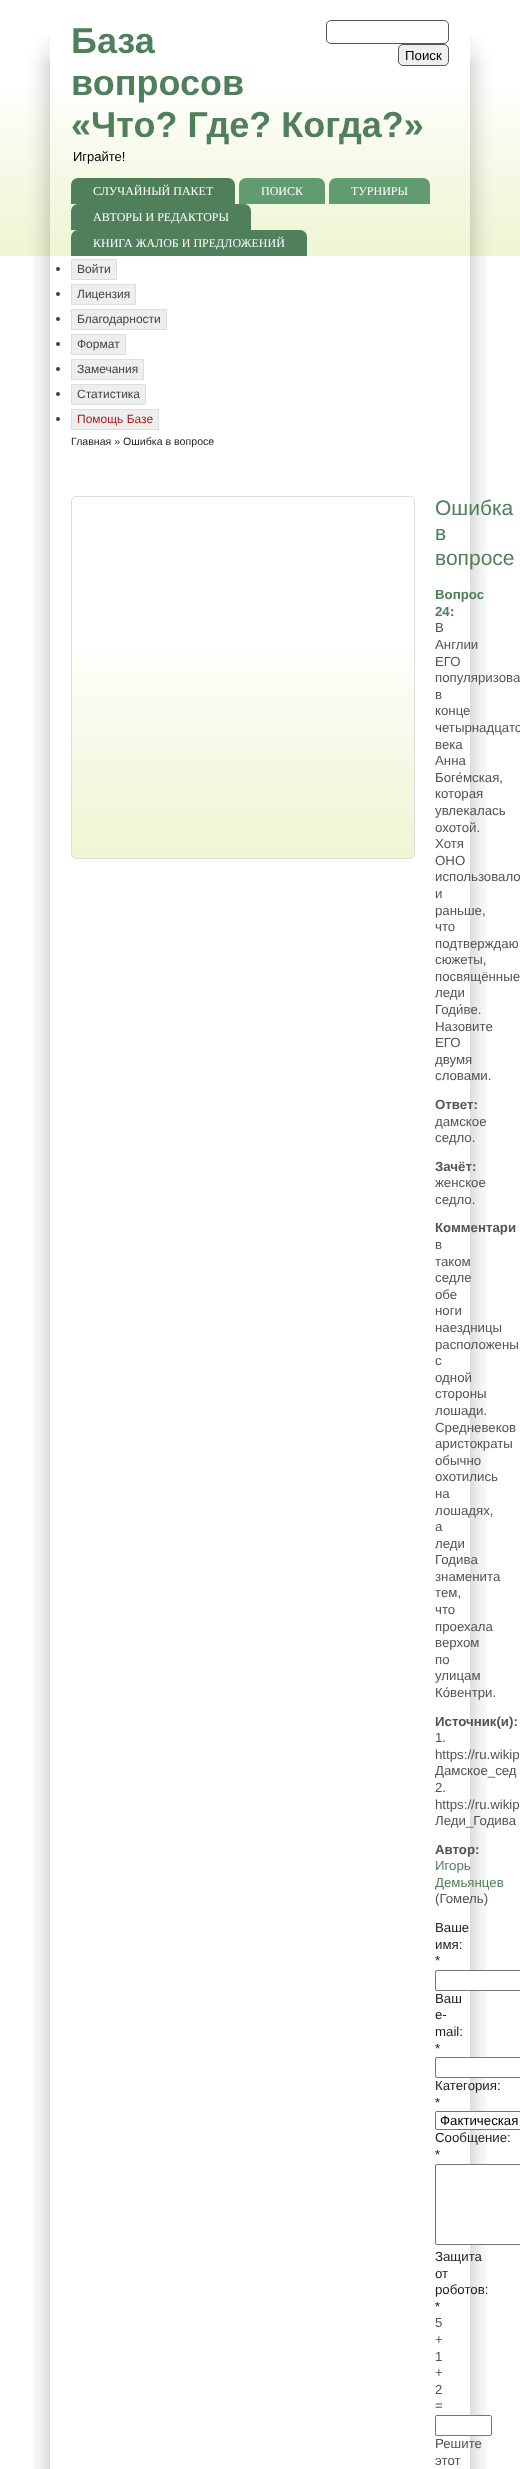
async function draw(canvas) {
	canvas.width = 520;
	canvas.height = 2469;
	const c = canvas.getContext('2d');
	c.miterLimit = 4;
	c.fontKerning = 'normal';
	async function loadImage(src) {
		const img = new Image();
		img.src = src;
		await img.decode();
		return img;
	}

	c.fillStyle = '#fff';
	c.fillRect(0, 0, 520, 2469);
	c.drawImage(await loadImage('img1.png'), 0, 91, 520, 165);
	c.drawImage(await loadImage('img2.png'), 26, 36, 24, 220);
	c.drawImage(await loadImage('img3.png'), 470, 36, 24, 220);
	c.font = 'bold 36px Liberation Sans';
	c.fillStyle = '#4f7f5b';
	for (const [text, x, y] of [
		['База', 71, 53],
		['вопросов', 71, 95],
		['«Что? Где? Когда?»', 71, 137],
	]) {
		c.fillText(text, x, y);
	}
	c.font = '13px Liberation Sans';
	c.fillStyle = '#000';
	c.fillText('Играйте!', 73, 161);
	c.beginPath();
	c.roundRect(326.5, 20.5, 122, 23, 4.5);
	c.strokeStyle = '#555';
	c.stroke();
	c.fillStyle = '#efefef';
	c.beginPath();
	c.roundRect(398.5, 44.5, 50, 21, 4.5);
	c.fill();
	c.stroke();
	c.font = '13.25px Liberation Sans';
	c.fillStyle = '#000';
	c.fillText('Поиск', 405, 60);
	c.fillStyle = '#4f7f5b';
	c.beginPath();
	c.roundRect(71, 178, 164, 26, [7, 7, 0, 0]);
	c.fill();
	c.font = '12px Liberation Serif';
	c.fillStyle = '#fff';
	c.fillText('СЛУЧАЙНЫЙ ПАКЕТ', 93, 195);
	c.fillStyle = '#619c70';
	c.beginPath();
	c.roundRect(239, 178, 86, 26, [7, 7, 0, 0]);
	c.fill();
	c.fillStyle = '#fff';
	c.fillText('ПОИСК', 261, 195);
	c.fillStyle = '#619c70';
	c.beginPath();
	c.roundRect(329, 178, 101, 26, [7, 7, 0, 0]);
	c.fill();
	c.fillStyle = '#fff';
	c.fillText('ТУРНИРЫ', 351, 195);
	c.fillStyle = '#4f7f5b';
	c.beginPath();
	c.roundRect(71, 204, 180, 26, [7, 7, 0, 0]);
	c.fill();
	c.fillStyle = '#fff';
	c.fillText('АВТОРЫ И РЕДАКТОРЫ', 93, 221);
	c.fillStyle = '#4f7f5b';
	c.beginPath();
	c.roundRect(71, 230, 236, 26, [7, 7, 0, 0]);
	c.fill();
	c.fillStyle = '#fff';
	c.fillText('КНИГА ЖАЛОБ И ПРЕДЛОЖЕНИЙ', 93, 247);
	c.drawImage(await loadImage('img4.png'), 33, 256, 17, 2213);
	c.drawImage(await loadImage('img5.png'), 470, 256, 17, 2213);
	c.fillStyle = '#3f3f3f';
	c.beginPath();
	c.arc(58, 269, 2, 0, 2 * Math.PI);
	c.fill();
	c.fillStyle = '#eee';
	c.beginPath();
	c.rect(71.5, 259.5, 45, 20);
	c.fill();
	c.strokeStyle = '#ddd';
	c.stroke();
	c.font = '12px Liberation Sans';
	c.fillStyle = '#444';
	c.fillText('Войти', 77, 273);
	c.fillStyle = '#3f3f3f';
	c.beginPath();
	c.arc(58, 294, 2, 0, 2 * Math.PI);
	c.fill();
	c.fillStyle = '#eee';
	c.beginPath();
	c.rect(71.5, 284.5, 64, 20);
	c.fill();
	c.stroke();
	c.fillStyle = '#444';
	c.fillText('Лицензия', 77, 298);
	c.fillStyle = '#3f3f3f';
	c.beginPath();
	c.arc(58, 319, 2, 0, 2 * Math.PI);
	c.fill();
	c.fillStyle = '#eee';
	c.beginPath();
	c.rect(71.5, 309.5, 95, 20);
	c.fill();
	c.stroke();
	c.fillStyle = '#444';
	c.fillText('Благодарности', 77, 323);
	c.fillStyle = '#3f3f3f';
	c.beginPath();
	c.arc(58, 344, 2, 0, 2 * Math.PI);
	c.fill();
	c.fillStyle = '#eee';
	c.beginPath();
	c.rect(71.5, 334.5, 54, 20);
	c.fill();
	c.stroke();
	c.fillStyle = '#444';
	c.fillText('Формат', 77, 348);
	c.fillStyle = '#3f3f3f';
	c.beginPath();
	c.arc(58, 369, 2, 0, 2 * Math.PI);
	c.fill();
	c.fillStyle = '#eee';
	c.beginPath();
	c.rect(71.5, 359.5, 72, 20);
	c.fill();
	c.stroke();
	c.fillStyle = '#444';
	c.fillText('Замечания', 77, 373);
	c.fillStyle = '#3f3f3f';
	c.beginPath();
	c.arc(58, 394, 2, 0, 2 * Math.PI);
	c.fill();
	c.fillStyle = '#eee';
	c.beginPath();
	c.rect(71.5, 384.5, 74, 20);
	c.fill();
	c.stroke();
	c.fillStyle = '#444';
	c.fillText('Статистика', 77, 398);
	c.fillStyle = '#3f3f3f';
	c.beginPath();
	c.arc(58, 419, 2, 0, 2 * Math.PI);
	c.fill();
	c.fillStyle = '#eee';
	c.beginPath();
	c.rect(71.5, 409.5, 87, 20);
	c.fill();
	c.stroke();
	c.fillStyle = '#a22';
	c.fillText('Помощь Базе', 77, 423);
	c.font = '10.6px Liberation Sans';
	c.fillStyle = '#1e201b';
	c.fillText('Главная » Ошибка в вопросе', 71, 445);
	c.drawImage(await loadImage('img6.png'), 71, 652, 344, 206);
	c.beginPath();
	c.roundRect(71.5, 496.5, 343, 362, 4.5);
	c.stroke();
	c.font = '21px Liberation Sans';
	c.fillStyle = '#4f7f5b';
	for (const [text, x, y] of [
		['Ошибка', 435, 515],
		['в', 435, 540],
		['вопросе', 435, 565],
	]) {
		c.fillText(text, x, y);
	}
	c.font = 'bold 13.25px Liberation Sans';
	c.fillText('Вопрос', 435, 599);
	c.fillText('24', 435, 616);
	c.fillStyle = '#535353';
	c.fillText(':', 450, 616);
	c.font = '13.25px Liberation Sans';
	for (const [text, x, y] of [
		['В', 435, 632],
		['Англии', 435, 649],
		['ЕГО', 435, 666],
		['популяризова', 435, 682],
		['в', 435, 699],
		['конце', 435, 715],
		['четырнадцато', 435, 732],
		['века', 435, 749],
		['Анна', 435, 765],
		['Боге́мская,', 435, 782],
		['которая', 435, 798],
		['увлекалась', 435, 815],
		['охотой.', 435, 832],
		['Хотя', 435, 848],
		['ОНО', 435, 865],
		['использовало', 435, 881],
		['и', 435, 898],
		['раньше,', 435, 915],
		['что', 435, 931],
		['подтверждаю', 435, 948],
		['сюжеты,', 435, 964],
		['посвящённые', 435, 981],
		['леди', 435, 997],
		['Годи́ве.', 435, 1014],
		['Назовите', 435, 1031],
		['ЕГО', 435, 1047],
		['двумя', 435, 1064],
		['словами.', 435, 1080],
	]) {
		c.fillText(text, x, y);
	}
	c.font = 'bold 13.25px Liberation Sans';
	c.fillText('Ответ:', 435, 1109);
	c.font = '13.25px Liberation Sans';
	c.fillText('дамское', 435, 1126);
	c.fillText('седло.', 435, 1142);
	c.font = 'bold 13.25px Liberation Sans';
	c.fillText('Зачёт:', 435, 1171);
	c.font = '13.25px Liberation Sans';
	c.fillText('женское', 435, 1187);
	c.fillText('седло.', 435, 1204);
	c.font = 'bold 13.25px Liberation Sans';
	c.fillText('Комментари', 435, 1232);
	c.font = '13.25px Liberation Sans';
	for (const [text, x, y] of [
		['в', 435, 1249],
		['таком', 435, 1266],
		['седле', 435, 1282],
		['обе', 435, 1299],
		['ноги', 435, 1315],
		['наездницы', 435, 1332],
		['расположены', 435, 1349],
		['с', 435, 1365],
		['одной', 435, 1382],
		['стороны', 435, 1398],
		['лошади.', 435, 1415],
		['Средневеков', 435, 1432],
		['аристократы', 435, 1448],
		['обычно', 435, 1465],
		['охотились', 435, 1481],
		['на', 435, 1498],
		['лошадях,', 435, 1515],
		['а', 435, 1531],
		['леди', 435, 1548],
		['Годива', 435, 1564],
		['знаменита', 435, 1581],
		['тем,', 435, 1597],
		['что', 435, 1614],
		['проехала', 435, 1631],
		['верхом', 435, 1647],
		['по', 435, 1664],
		['улицам', 435, 1680],
		['Ко́вентри.', 435, 1697],
	]) {
		c.fillText(text, x, y);
	}
	c.font = 'bold 13.25px Liberation Sans';
	c.fillText('Источник(и):', 435, 1726);
	c.font = '13.25px Liberation Sans';
	for (const [text, x, y] of [
		['1.', 435, 1742],
		['https://ru.wikip', 435, 1759],
		['Дамское_сед', 435, 1775],
		['2.', 435, 1792],
		['https://ru.wikip', 435, 1809],
		['Леди_Годива', 435, 1825],
	]) {
		c.fillText(text, x, y);
	}
	c.font = 'bold 13.25px Liberation Sans';
	c.fillText('Автор:', 435, 1854);
	c.font = '13.25px Liberation Sans';
	c.fillStyle = '#4f7f5b';
	c.fillText('Игорь', 435, 1870);
	c.fillText('Демьянцев', 435, 1887);
	c.fillStyle = '#535353';
	c.fillText('(Гомель)', 435, 1903);
	c.fillStyle = '#222';
	for (const [text, x, y] of [
		['Ваше', 435, 1932],
		['имя:', 435, 1949],
		['*', 435, 1965],
	]) {
		c.fillText(text, x, y);
	}
	c.fillStyle = '#fff';
	c.beginPath();
	c.roundRect(435.5, 1970.5, 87, 20, 1.5);
	c.fill();
	c.strokeStyle = '#767676';
	c.stroke();
	c.fillStyle = '#222';
	for (const [text, x, y] of [
		['Ваш', 435, 2003],
		['e-', 435, 2019],
		['mail:', 435, 2036],
		['*', 435, 2053],
	]) {
		c.fillText(text, x, y);
	}
	c.fillStyle = '#fff';
	c.beginPath();
	c.roundRect(435.5, 2057.5, 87, 20, 1.5);
	c.fill();
	c.stroke();
	c.fillStyle = '#222';
	c.fillText('Категория:', 435, 2090);
	c.fillText('*', 435, 2107);
	c.fillStyle = '#fff';
	c.beginPath();
	c.roundRect(435.5, 2111.5, 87, 18, 1.5);
	c.fill();
	c.stroke();
	c.fillStyle = '#000';
	c.fillText('Фактическая', 440, 2125);
	c.fillStyle = '#222';
	c.fillText('Сообщение:', 435, 2142);
	c.fillText('*', 435, 2159);
	c.fillStyle = '#fff';
	c.beginPath();
	c.roundRect(435.5, 2164.5, 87, 80, 1.5);
	c.fill();
	c.stroke();
	c.fillStyle = '#222';
	for (const [text, x, y] of [
		['Защита', 435, 2261],
		['от', 435, 2278],
		['роботов:', 435, 2294],
		['*', 435, 2311],
	]) {
		c.fillText(text, x, y);
	}
	c.fillStyle = '#535353';
	for (const [text, x, y] of [
		['5', 435, 2327],
		['+', 435, 2344],
		['1', 435, 2361],
		['+', 435, 2377],
		['2', 435, 2394],
		['=', 435, 2410],
	]) {
		c.fillText(text, x, y);
	}
	c.fillStyle = '#fff';
	c.beginPath();
	c.roundRect(435.5, 2415.5, 56, 20, 1.5);
	c.fill();
	c.stroke();
	c.fillStyle = '#535353';
	c.fillText('Решите', 435, 2448);
	c.fillText('этот', 435, 2465);
}

draw(document.querySelector('canvas'));
